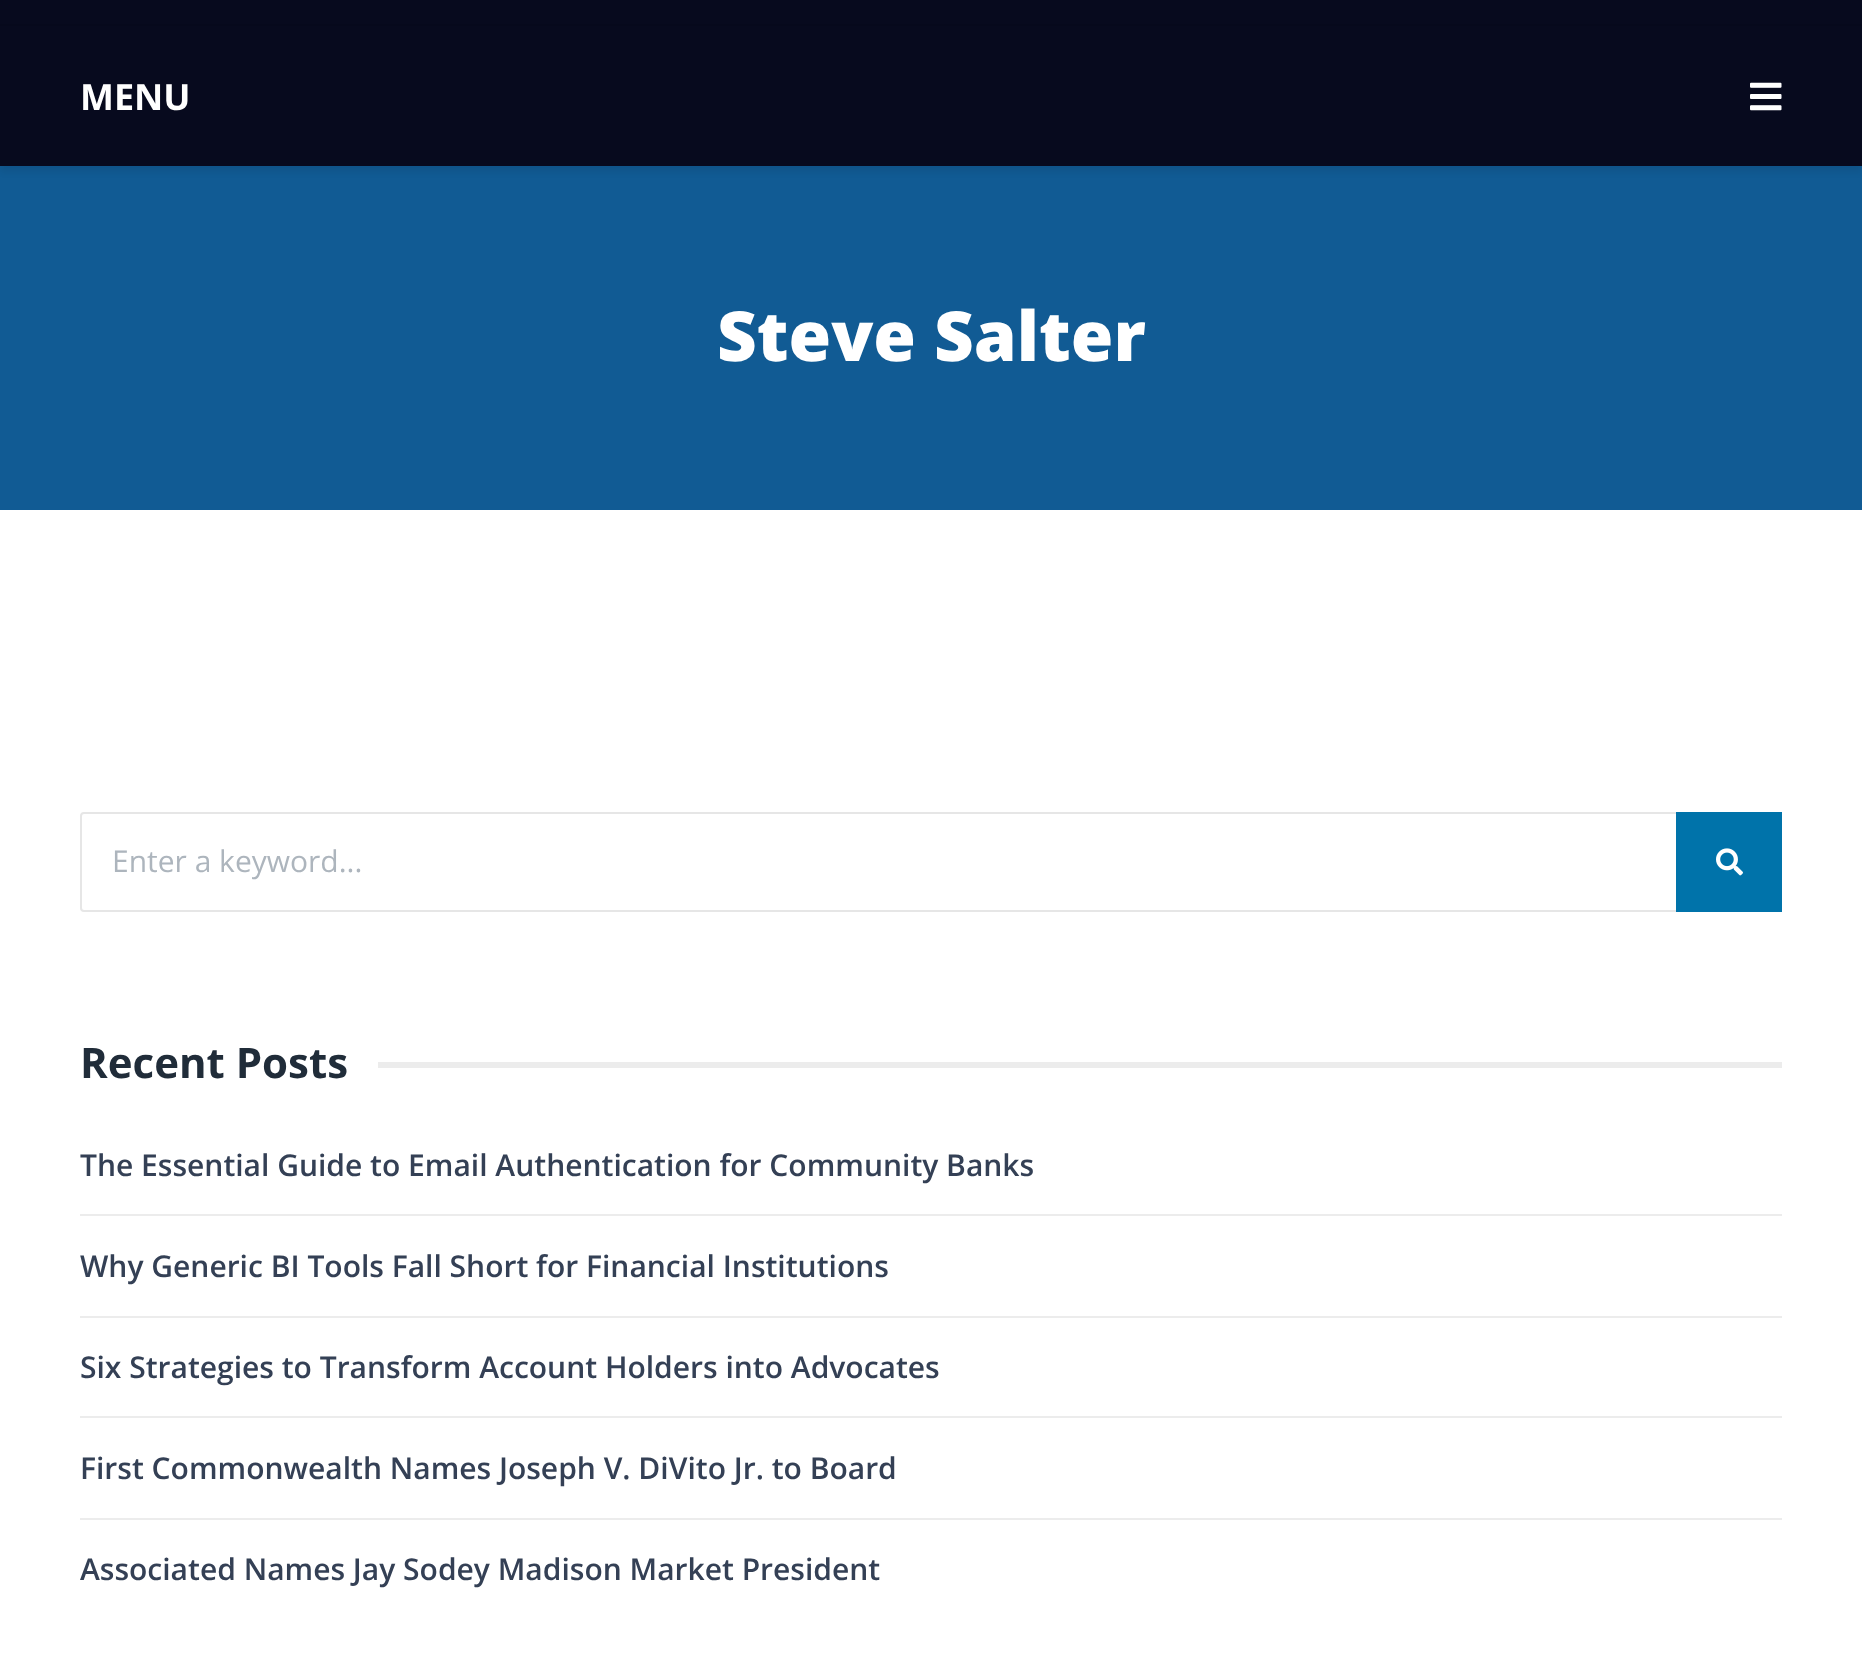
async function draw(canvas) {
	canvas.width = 1862;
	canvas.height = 1655;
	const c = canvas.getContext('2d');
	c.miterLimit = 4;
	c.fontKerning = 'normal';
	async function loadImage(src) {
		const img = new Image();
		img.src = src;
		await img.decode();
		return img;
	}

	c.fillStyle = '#fff';
	c.fillRect(0, 0, 1862, 1655);
	c.fillStyle = '#115b94';
	c.fillRect(0, 166, 1862, 344);
	c.fillStyle = '#00000012';
	c.filter = 'blur(3px)';
	c.beginPath();
	c.rect(0, 32, 1862, 140);
	c.fill();
	c.filter = 'none';
	for (const [x, y, w, h, color] of [
		[0, 0, 1862, 24, '#070a1e'],
		[0, 24, 1862, 2, '#06091c'],
		[0, 26, 1862, 140, '#070a1e'],
	]) {
		c.fillStyle = color;
		c.fillRect(x, y, w, h);
	}
	c.font = 'bold 36px Open Sans';
	c.fillStyle = '#fff';
	c.fillText('MENU', 80, 110);
	c.drawImage(await loadImage('img1.png'), 1750, 82, 32, 29);
	c.font = '800 69px Open Sans';
	c.fillText('Steve Salter', 717, 361);
	c.beginPath();
	c.roundRect(81, 813, 1596, 98, [3, 0, 0, 3]);
	c.strokeStyle = '#e6e6e6';
	c.lineWidth = 2;
	c.stroke();
	c.font = '30px Open Sans';
	c.fillStyle = '#adb5bd';
	c.fillText('Enter a keyword...', 112, 872);
	c.fillStyle = '#0073aa';
	c.fillRect(1676, 812, 106, 100);
	c.drawImage(await loadImage('img2.png'), 1716, 848, 27, 28);
	c.font = 'bold 42px Open Sans';
	c.fillStyle = '#202c39';
	c.fillText('Recent Posts', 80, 1078);
	c.fillStyle = '#ececec';
	c.fillRect(378, 1062, 1404, 6);
	c.fillRect(80, 1214, 1702, 2);
	c.font = '600 30px Open Sans';
	c.fillStyle = '#344055';
	c.fillText('The Essential Guide to Email Authentication for Community Banks', 80, 1176);
	c.fillStyle = '#ececec';
	c.fillRect(80, 1316, 1702, 2);
	c.fillStyle = '#344055';
	c.fillText('Why Generic BI Tools Fall Short for Financial Institutions', 80, 1277);
	c.fillStyle = '#ececec';
	c.fillRect(80, 1416, 1702, 2);
	c.fillStyle = '#344055';
	c.fillText('Six Strategies to Transform Account Holders into Advocates', 80, 1378);
	c.fillStyle = '#ececec';
	c.fillRect(80, 1518, 1702, 2);
	c.fillStyle = '#344055';
	c.fillText('First Commonwealth Names Joseph V. DiVito Jr. to Board', 80, 1479);
	c.fillText('Associated Names Jay Sodey Madison Market President', 80, 1580);
}

draw(document.querySelector('canvas'));
